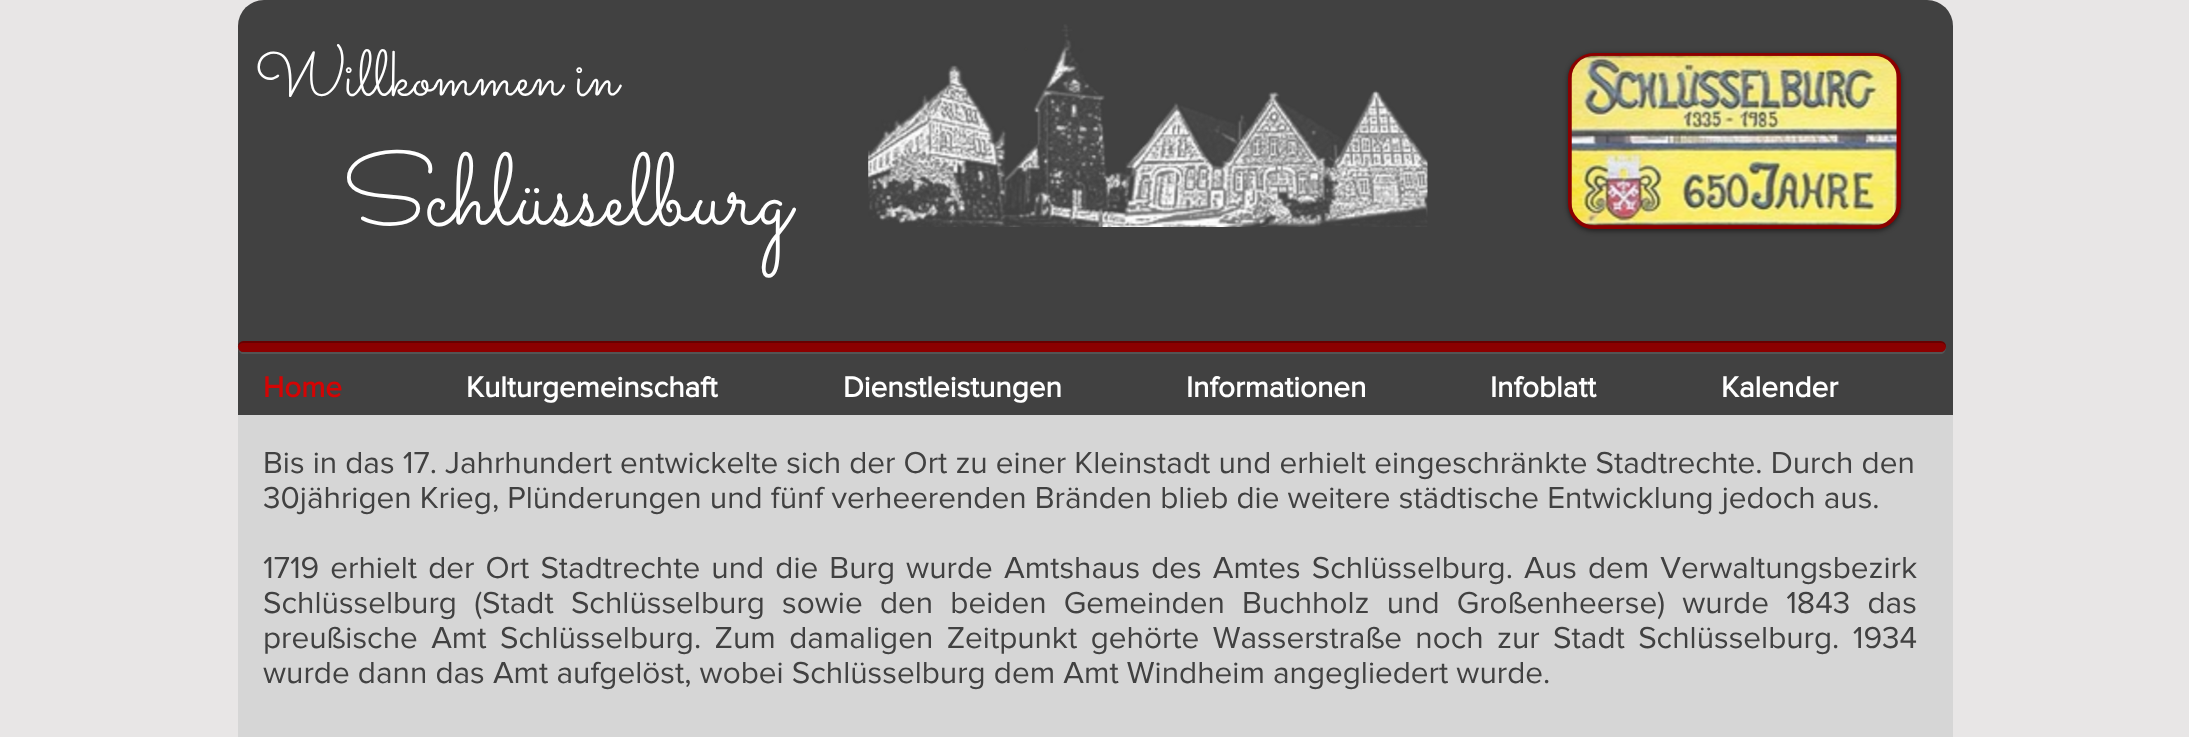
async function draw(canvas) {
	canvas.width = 2189;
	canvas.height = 737;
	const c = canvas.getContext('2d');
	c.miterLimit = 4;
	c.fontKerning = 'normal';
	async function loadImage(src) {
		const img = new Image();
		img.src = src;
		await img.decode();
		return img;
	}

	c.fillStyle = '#e8e6e6';
	c.fillRect(0, 0, 2189, 737);
	c.fillStyle = '#414141';
	c.beginPath();
	c.roundRect(238, 0, 1715, 415, [26, 26, 0, 0]);
	c.fill();
	c.font = '64.75px Sacramento';
	c.fillStyle = '#fff';
	c.fillText('Willkommen in', 255, 95);
	c.font = '101.5px Sacramento';
	c.fillText('Schlüsselburg', 342, 224);
	c.drawImage(await loadImage('img1.png'), 868, 24, 560, 203);
	c.fillStyle = '#00000080';
	c.filter = 'blur(2.5px)';
	c.beginPath();
	c.roundRect(1568, 54, 333, 177, 26);
	c.fill();
	c.filter = 'none';
	c.fillStyle = '#8b0000';
	c.beginPath();
	c.roundRect(1570, 55, 329, 172, 24);
	c.fill();
	c.strokeStyle = '#8b0000';
	c.lineWidth = 4;
	c.stroke();
	c.drawImage(await loadImage('img2.png'), 1571, 55, 326, 171);
	c.fillStyle = '#545454';
	c.beginPath();
	c.moveTo(238, 347);
	c.bezierCurveTo(238, 350, 239, 353, 242, 354);
	c.lineTo(1942, 354);
	c.bezierCurveTo(1945, 353, 1946, 350, 1946, 347);
	c.bezierCurveTo(1945, 350, 1943, 352, 1941, 352);
	c.lineTo(243, 352);
	c.bezierCurveTo(241, 352, 239, 350, 238, 347);
	c.closePath();
	c.fill();
	c.fillStyle = '#8b0000';
	c.beginPath();
	c.roundRect(238, 341, 1708, 11, 5.5);
	c.fill();
	c.fillStyle = '#00000040';
	c.beginPath();
	c.moveTo(243, 343);
	c.lineTo(1941, 343);
	c.bezierCurveTo(1944, 343, 1945, 345, 1946, 347);
	c.bezierCurveTo(1946, 344, 1944, 341, 1940, 341);
	c.lineTo(244, 341);
	c.bezierCurveTo(241, 341, 238, 343, 238, 346);
	c.bezierCurveTo(239, 345, 240, 343, 243, 343);
	c.closePath();
	c.fill();
	c.font = 'bold 29.75px "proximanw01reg"';
	c.fillStyle = '#d40404';
	c.fillText('Home', 263, 397);
	c.fillStyle = '#fff';
	for (const [text, x, y] of [
		['Kulturgemeinschaft', 466, 397],
		['Dienstleistungen', 843, 397],
		['Informationen', 1186, 397],
		['Infoblatt', 1490, 397],
		['Kalender', 1721, 397],
	]) {
		c.fillText(text, x, y);
	}
	c.fillStyle = '#d6d6d6';
	c.fillRect(238, 415, 1715, 322);
	c.font = '31.5px "proximanw01reg"';
	c.fillStyle = '#414141';
	c.fillText('Bis in das 17. Jahrhundert entwickelte sich der Ort zu einer Kleinstadt und erhielt eingeschränkte Stadtrechte. Durch den', 263, 473);
	c.fillText('30jährigen Krieg, Plünderungen und fünf verheerenden Bränden blieb die weitere städtische Entwicklung jedoch aus.', 263, 508);
	c.wordSpacing = '3px';
	c.fillText('1719 erhielt der Ort Stadtrechte und die Burg wurde Amtshaus des Amtes Schlüsselburg. Aus dem Verwaltungsbezirk', 263, 578);
	c.wordSpacing = '9.1px';
	c.fillText('Schlüsselburg (Stadt Schlüsselburg sowie den beiden Gemeinden Buchholz und Großenheerse) wurde 1843 das', 263, 613);
	c.wordSpacing = '5.25px';
	c.fillText('preußische Amt Schlüsselburg. Zum damaligen Zeitpunkt gehörte Wasserstraße noch zur Stadt Schlüsselburg. 1934', 263, 648);
	c.wordSpacing = '0px';
	c.fillText('wurde dann das Amt aufgelöst, wobei Schlüsselburg dem Amt Windheim angegliedert wurde.', 263, 683);
}

draw(document.querySelector('canvas'));
